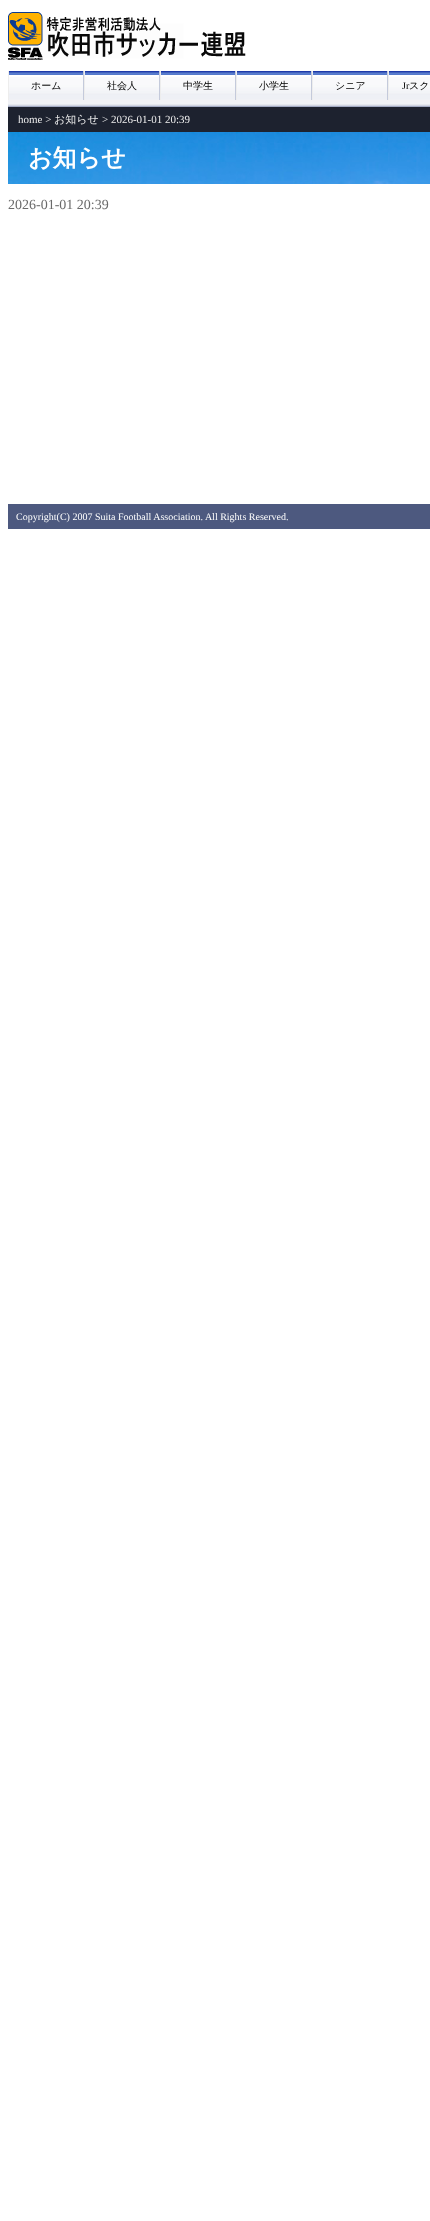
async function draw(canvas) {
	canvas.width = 430;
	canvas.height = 2221;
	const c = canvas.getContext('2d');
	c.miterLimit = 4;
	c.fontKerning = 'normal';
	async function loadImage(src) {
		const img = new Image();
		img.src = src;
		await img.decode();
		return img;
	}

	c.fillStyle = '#fff';
	c.fillRect(0, 0, 430, 2221);
	c.drawImage(await loadImage('img1.png'), 8, 12, 238, 48);
	c.drawImage(await loadImage('img2.png'), 8, 71, 422, 36);
	c.fillStyle = '#c4cadb';
	c.fillRect(83, 71, 1, 29);
	c.fillStyle = '#ededed';
	c.fillRect(8, 71, 1, 29);
	c.font = '500 10px WenQuanYi Zen Hei';
	c.fillStyle = '#000';
	c.fillText('ホーム', 31, 89);
	c.fillStyle = '#c4cadb';
	c.fillRect(159, 71, 1, 29);
	c.fillStyle = '#ededed';
	c.fillRect(84, 71, 1, 29);
	c.fillStyle = '#000';
	c.fillText('社会人', 107, 89);
	c.fillStyle = '#c4cadb';
	c.fillRect(235, 71, 1, 29);
	c.fillStyle = '#ededed';
	c.fillRect(160, 71, 1, 29);
	c.fillStyle = '#000';
	c.fillText('中学生', 183, 89);
	c.fillStyle = '#c4cadb';
	c.fillRect(311, 71, 1, 29);
	c.fillStyle = '#ededed';
	c.fillRect(236, 71, 1, 29);
	c.fillStyle = '#000';
	c.fillText('小学生', 259, 89);
	c.fillStyle = '#c4cadb';
	c.fillRect(387, 71, 1, 29);
	c.fillStyle = '#ededed';
	c.fillRect(312, 71, 1, 29);
	c.fillStyle = '#000';
	c.fillText('シニア', 335, 89);
	c.fillStyle = '#ededed';
	c.fillRect(388, 71, 1, 29);
	c.font = '10px Liberation Serif';
	c.fillStyle = '#000';
	c.fillText('Jr', 402, 89);
	c.font = '500 10px WenQuanYi Zen Hei';
	c.fillText('スク', 409, 89);
	c.fillStyle = '#1d222f';
	c.fillRect(8, 107, 422, 25);
	c.font = '11px Liberation Serif';
	c.fillStyle = '#ededed';
	c.fillText('home >', 18, 123);
	c.font = '500 11px WenQuanYi Zen Hei';
	c.fillText('お知らせ', 54, 123);
	c.font = '11px Liberation Serif';
	c.fillText('> 2026-01-01 20:39', 102, 123);
	c.drawImage(await loadImage('img3.png'), 8, 132, 422, 52);
	c.font = 'bold 24px WenQuanYi Zen Hei';
	c.fillStyle = '#fff';
	c.fillText('お知らせ', 28, 166);
	c.font = '14px Liberation Serif';
	c.fillStyle = '#6a6a6a';
	c.fillText('2026-01-01 20:39', 8, 209);
	c.fillStyle = '#4d597f';
	c.fillRect(8, 504, 422, 25);
	c.font = '10px Liberation Serif';
	c.fillStyle = '#fff';
	c.fillText('Copyright(C) 2007 Suita Football Association. All Rights Reserved.', 16, 520);
}

draw(document.querySelector('canvas'));
